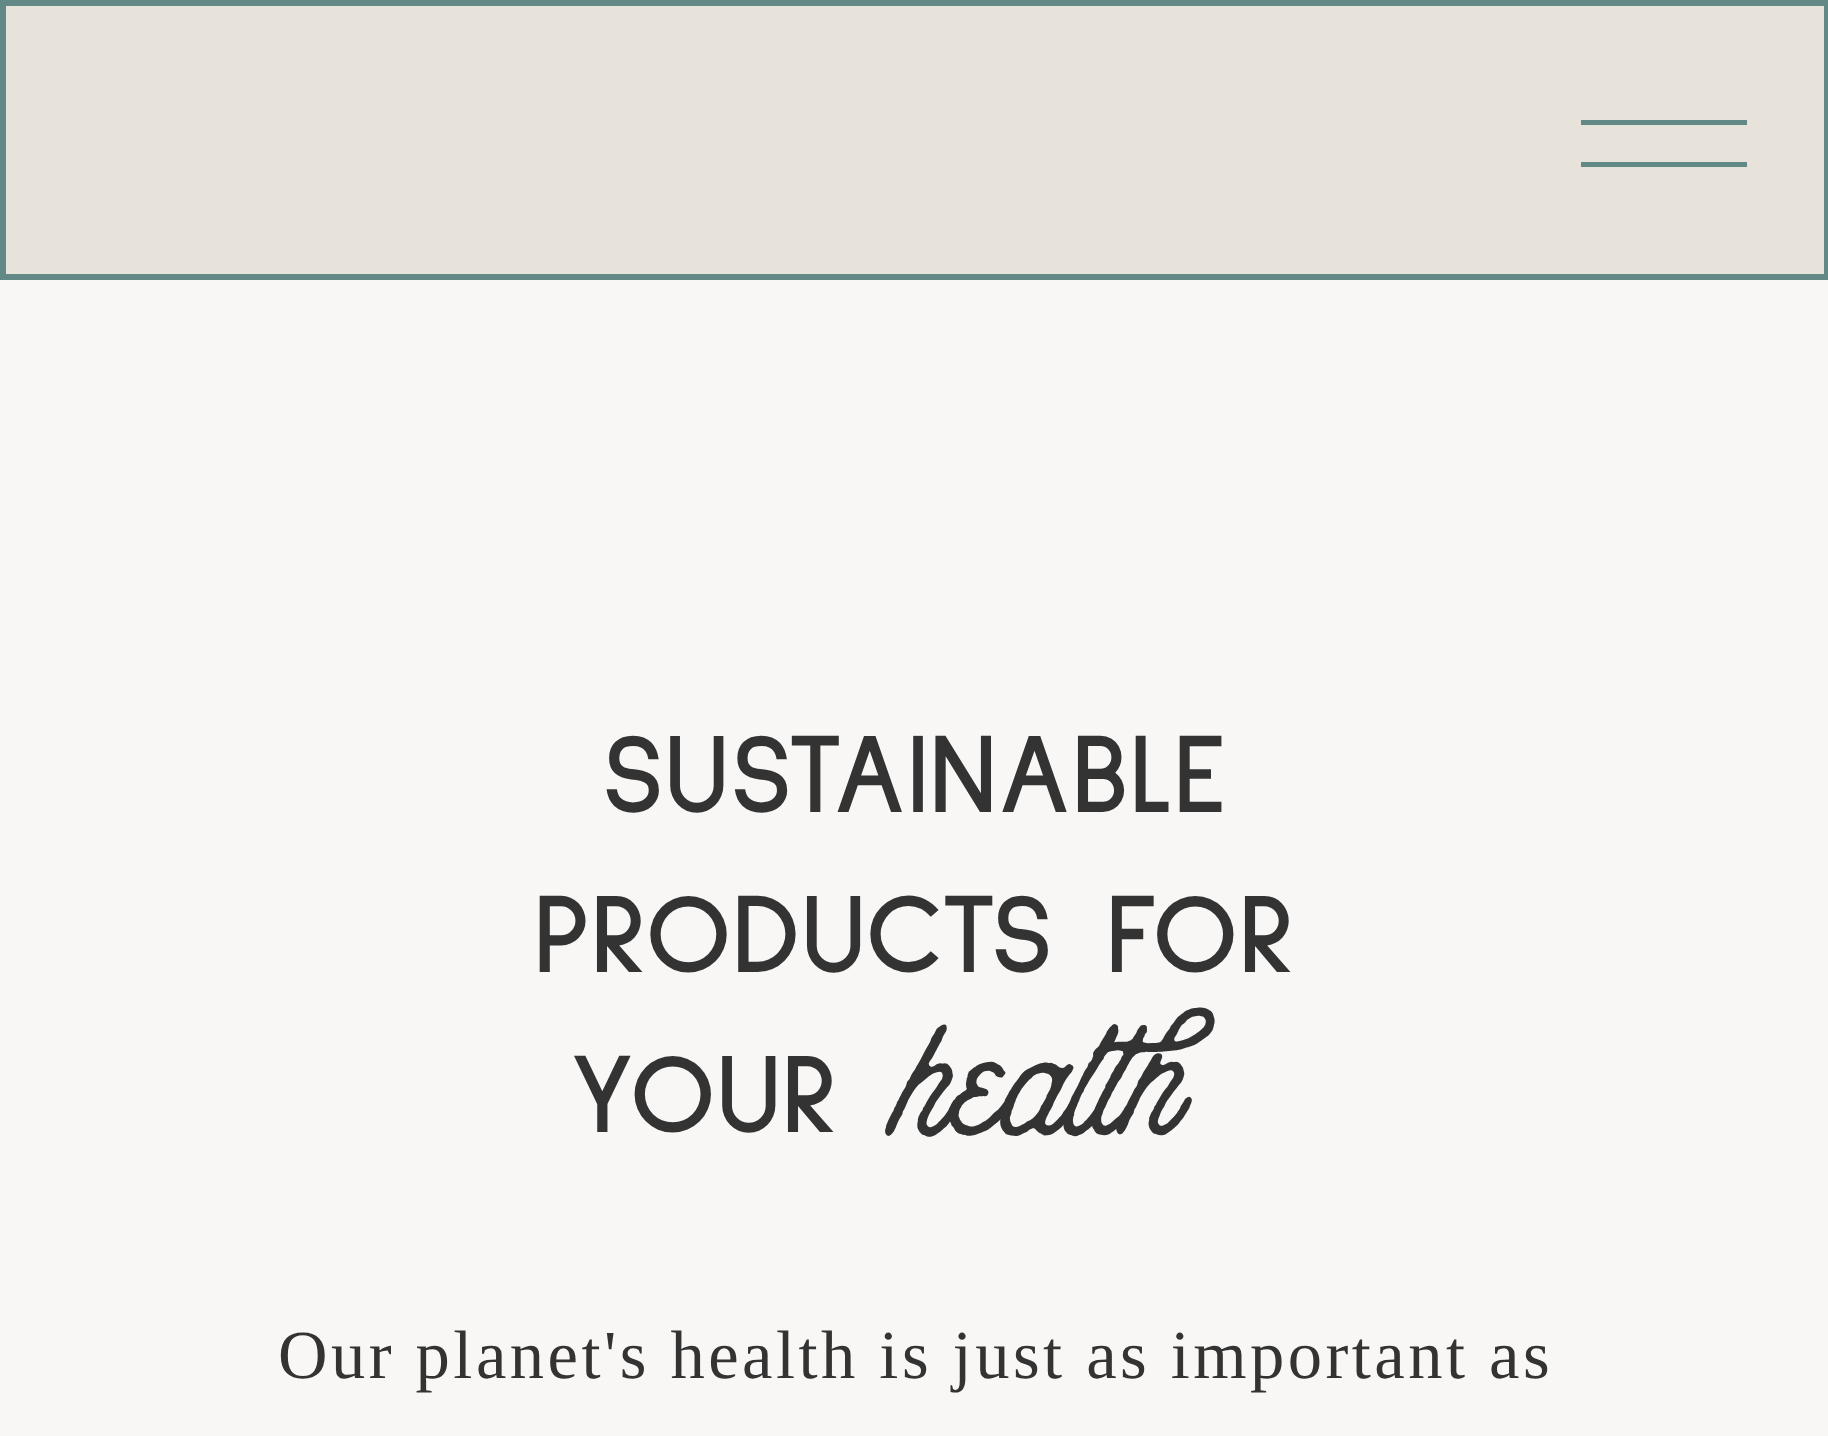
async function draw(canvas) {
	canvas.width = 1828;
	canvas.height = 1436;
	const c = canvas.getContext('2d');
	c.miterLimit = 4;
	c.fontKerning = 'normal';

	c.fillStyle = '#f9f7f5';
	c.fillRect(0, 0, 1828, 1436);
	c.fillStyle = '#e8e3da';
	c.beginPath();
	c.rect(3, 3, 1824, 274);
	c.fill();
	c.strokeStyle = '#638987';
	c.lineWidth = 6;
	c.stroke();
	c.fillStyle = '#638987';
	c.fillRect(1581, 120, 166, 5);
	c.fillRect(1581, 162, 166, 5);
	c.letterSpacing = '1.1px';
	c.font = 'bold 114.5px Sulphur Point';
	c.fillStyle = '#333';
	for (const [text, x, y] of [
		['SUSTAINABLE', 602, 812],
		['PRODUCTS FOR', 534, 972],
		['YOUR', 570, 1132],
	]) {
		c.fillText(text, x, y);
	}
	c.letterSpacing = '0px';
	c.font = '257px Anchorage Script';
	c.fillText('health', 891, 1172);
	c.letterSpacing = '3.45px';
	c.font = '68.6px Liberation Serif';
	c.fillText('Our planet\'s health is just as important as', 278, 1378);
}

draw(document.querySelector('canvas'));
